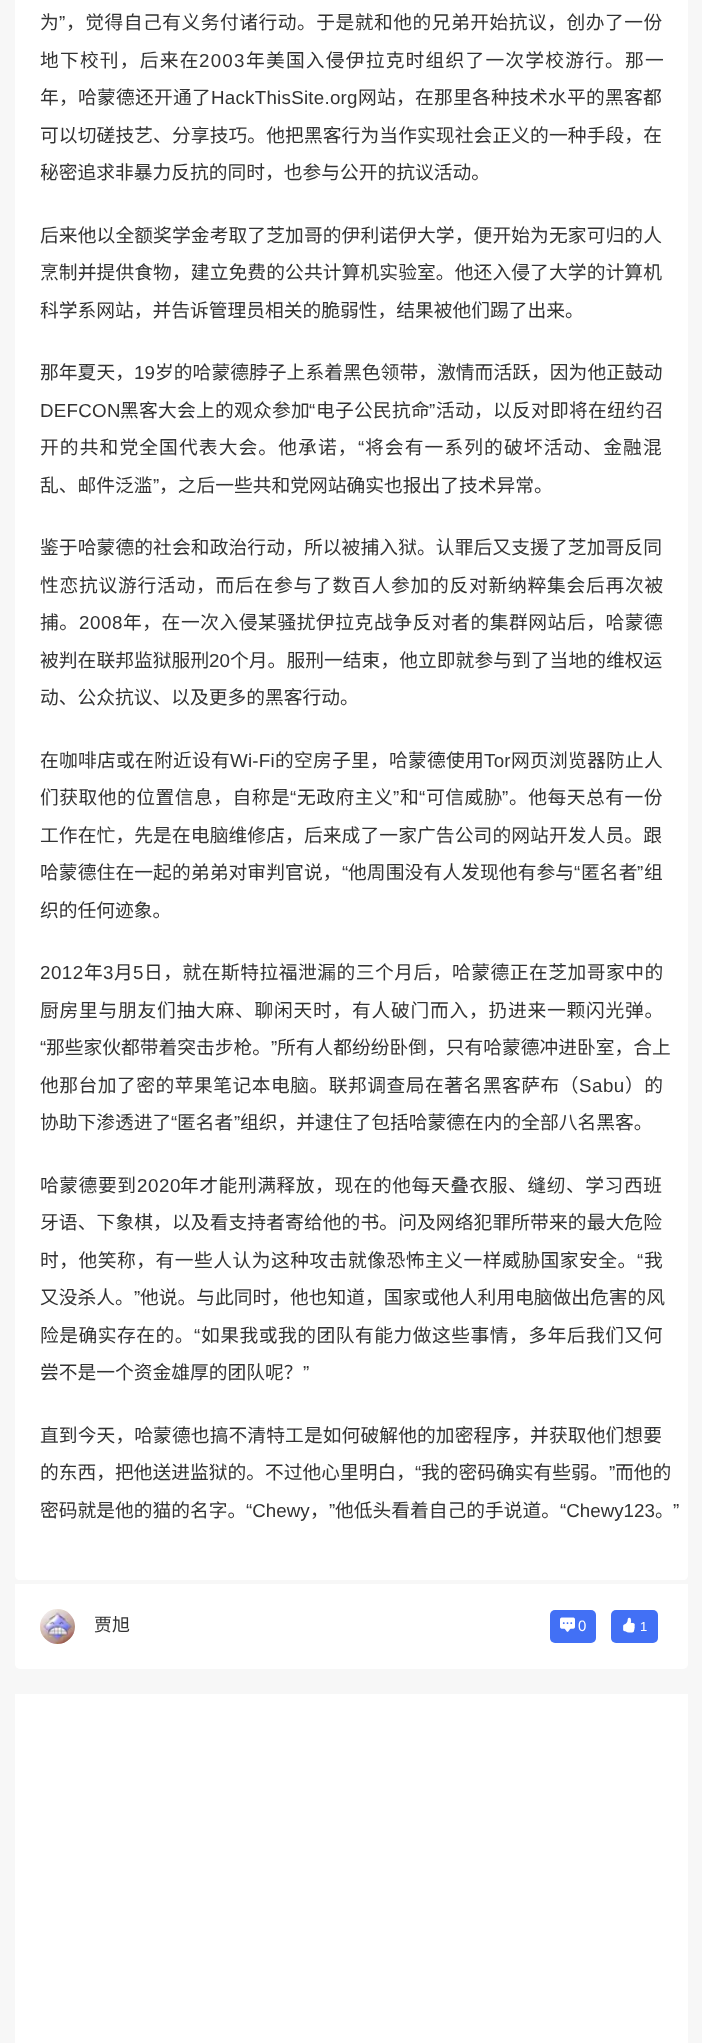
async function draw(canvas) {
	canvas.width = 702;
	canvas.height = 2043;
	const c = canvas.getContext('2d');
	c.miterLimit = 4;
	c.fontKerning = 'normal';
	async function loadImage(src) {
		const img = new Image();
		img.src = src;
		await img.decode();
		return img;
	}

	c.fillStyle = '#f7f7f7';
	c.fillRect(0, 0, 702, 2043);
	c.fillStyle = '#fff';
	c.beginPath();
	c.moveTo(15, -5);
	c.lineTo(688, -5);
	c.lineTo(688, 1575);
	c.bezierCurveTo(688, 1578, 686, 1580, 683, 1580);
	c.lineTo(20, 1580);
	c.bezierCurveTo(17, 1580, 15, 1578, 15, 1575);
	c.closePath();
	c.fill();
	c.letterSpacing = '0.5px';
	c.font = '18.75px Noto Sans CJK SC';
	c.fillStyle = '#333';
	c.fillText('为', 40, 29);
	c.font = '18.75px Liberation Sans';
	c.fillText('”', 59, 29);
	c.font = '18.75px Noto Sans CJK SC';
	c.fillText('，觉得自己有义务付诸行动。于是就和他的兄弟开始抗议，创办了一份', 66, 29);
	c.letterSpacing = '1.2px';
	c.fillText('地下校刊，后来在', 40, 67);
	c.font = '18.75px Liberation Sans';
	c.fillText('2003', 199, 67);
	c.font = '18.75px Noto Sans CJK SC';
	c.fillText('年美国入侵伊拉克时组织了一次学校游行。那一', 246, 67);
	c.letterSpacing = '0.25px';
	c.fillText('年，哈蒙德还开通了', 40, 104);
	c.font = '18.75px Liberation Sans';
	c.fillText('HackThisSite.org', 211, 104);
	c.font = '18.75px Noto Sans CJK SC';
	c.fillText('网站，在那里各种技术水平的黑客都', 358, 104);
	c.letterSpacing = '0.1px';
	c.fillText('可以切磋技艺、分享技巧。他把黑客行为当作实现社会正义的一种手段，在', 40, 142);
	c.letterSpacing = '0px';
	c.fillText('秘密追求非暴力反抗的同时，也参与公开的抗议活动。', 40, 179);
	c.letterSpacing = '0.1px';
	c.fillText('后来他以全额奖学金考取了芝加哥的伊利诺伊大学，便开始为无家可归的人', 40, 242);
	c.fillText('烹制并提供食物，建立免费的公共计算机实验室。他还入侵了大学的计算机', 40, 279);
	c.letterSpacing = '0px';
	c.fillText('科学系网站，并告诉管理员相关的脆弱性，结果被他们踢了出来。', 40, 317);
	c.letterSpacing = '0.05px';
	c.fillText('那年夏天，', 40, 379);
	c.font = '18.75px Liberation Sans';
	c.fillText('19', 134, 379);
	c.font = '18.75px Noto Sans CJK SC';
	c.fillText('岁的哈蒙德脖子上系着黑色领带，激情而活跃，因为他正鼓动', 155, 379);
	c.letterSpacing = '0.25px';
	c.font = '18.75px Liberation Sans';
	c.fillText('DEFCON', 40, 417);
	c.font = '18.75px Noto Sans CJK SC';
	c.fillText('黑客大会上的观众参加', 120, 417);
	c.font = '18.75px Liberation Sans';
	c.fillText('“', 309, 417);
	c.font = '18.75px Noto Sans CJK SC';
	c.fillText('电子公民抗命', 316, 417);
	c.font = '18.75px Liberation Sans';
	c.fillText('”', 429, 417);
	c.font = '18.75px Noto Sans CJK SC';
	c.fillText('活动，以反对即将在纽约召', 436, 417);
	c.letterSpacing = '1.1px';
	c.fillText('开的共和党全国代表大会。他承诺，', 40, 454);
	c.font = '18.75px Liberation Sans';
	c.fillText('“', 358, 454);
	c.font = '18.75px Noto Sans CJK SC';
	c.fillText('将会有一系列的破坏活动、金融混', 365, 454);
	c.letterSpacing = '0px';
	c.fillText('乱、邮件泛滥', 40, 492);
	c.font = '18.75px Liberation Sans';
	c.fillText('”', 153, 492);
	c.font = '18.75px Noto Sans CJK SC';
	c.fillText('，之后一些共和党网站确实也报出了技术异常。', 159, 492);
	c.letterSpacing = '0.1px';
	c.fillText('鉴于哈蒙德的社会和政治行动，所以被捕入狱。认罪后又支援了芝加哥反同', 40, 554);
	c.letterSpacing = '0.75px';
	c.fillText('性恋抗议游行活动，而后在参与了数百人参加的反对新纳粹集会后再次被', 40, 592);
	c.letterSpacing = '0.55px';
	c.fillText('捕。', 40, 629);
	c.font = '18.75px Liberation Sans';
	c.fillText('2008', 79, 629);
	c.font = '18.75px Noto Sans CJK SC';
	c.fillText('年，在一次入侵某骚扰伊拉克战争反对者的集群网站后，哈蒙德', 123, 629);
	c.letterSpacing = '0.05px';
	c.fillText('被判在联邦监狱服刑', 40, 667);
	c.font = '18.75px Liberation Sans';
	c.fillText('20', 209, 667);
	c.font = '18.75px Noto Sans CJK SC';
	c.fillText('个月。服刑一结束，他立即就参与到了当地的维权运', 230, 667);
	c.letterSpacing = '0px';
	c.fillText('动、公众抗议、以及更多的黑客行动。', 40, 704);
	c.letterSpacing = '0.25px';
	c.fillText('在咖啡店或在附近设有', 40, 767);
	c.font = '18.75px Liberation Sans';
	c.fillText('Wi-Fi', 230, 767);
	c.font = '18.75px Noto Sans CJK SC';
	c.fillText('的空房子里，哈蒙德使用', 275, 767);
	c.font = '18.75px Liberation Sans';
	c.fillText('Tor', 484, 767);
	c.font = '18.75px Noto Sans CJK SC';
	c.fillText('网页浏览器防止人', 511, 767);
	c.letterSpacing = '0.5px';
	c.fillText('们获取他的位置信息，自称是', 40, 804);
	c.font = '18.75px Liberation Sans';
	c.fillText('“', 290, 804);
	c.font = '18.75px Noto Sans CJK SC';
	c.fillText('无政府主义', 297, 804);
	c.font = '18.75px Liberation Sans';
	c.fillText('”', 393, 804);
	c.font = '18.75px Noto Sans CJK SC';
	c.fillText('和', 400, 804);
	c.font = '18.75px Liberation Sans';
	c.fillText('“', 419, 804);
	c.font = '18.75px Noto Sans CJK SC';
	c.fillText('可信威胁', 426, 804);
	c.font = '18.75px Liberation Sans';
	c.fillText('”', 502, 804);
	c.font = '18.75px Noto Sans CJK SC';
	c.fillText('。他每天总有一份', 509, 804);
	c.letterSpacing = '0.1px';
	c.fillText('工作在忙，先是在电脑维修店，后来成了一家广告公司的网站开发人员。跟', 40, 842);
	c.fillText('哈蒙德住在一起的弟弟对审判官说，', 40, 879);
	c.font = '18.75px Liberation Sans';
	c.fillText('“', 342, 879);
	c.font = '18.75px Noto Sans CJK SC';
	c.fillText('他周围没有人发现他有参与', 348, 879);
	c.font = '18.75px Liberation Sans';
	c.fillText('“', 574, 879);
	c.font = '18.75px Noto Sans CJK SC';
	c.fillText('匿名者', 581, 879);
	c.font = '18.75px Liberation Sans';
	c.fillText('”', 637, 879);
	c.font = '18.75px Noto Sans CJK SC';
	c.fillText('组', 644, 879);
	c.letterSpacing = '0px';
	c.fillText('织的任何迹象。', 40, 917);
	c.letterSpacing = '0.5px';
	c.font = '18.75px Liberation Sans';
	c.fillText('2012', 40, 979);
	c.font = '18.75px Noto Sans CJK SC';
	c.fillText('年', 84, 979);
	c.font = '18.75px Liberation Sans';
	c.fillText('3', 103, 979);
	c.font = '18.75px Noto Sans CJK SC';
	c.fillText('月', 114, 979);
	c.font = '18.75px Liberation Sans';
	c.fillText('5', 133, 979);
	c.font = '18.75px Noto Sans CJK SC';
	c.fillText('日，就在斯特拉福泄漏的三个月后，哈蒙德正在芝加哥家中的', 144, 979);
	c.letterSpacing = '0.75px';
	c.fillText('厨房里与朋友们抽大麻、聊闲天时，有人破门而入，扔进来一颗闪光弹。', 40, 1017);
	c.letterSpacing = '0px';
	c.font = '18.75px Liberation Sans';
	c.fillText('“', 40, 1054);
	c.font = '18.75px Noto Sans CJK SC';
	c.fillText('那些家伙都带着突击步枪。', 46, 1054);
	c.font = '18.75px Liberation Sans';
	c.fillText('”', 271, 1054);
	c.font = '18.75px Noto Sans CJK SC';
	c.fillText('所有人都纷纷卧倒，只有哈蒙德冲进卧室，合上', 277, 1054);
	c.letterSpacing = '0.5px';
	c.fillText('他那台加了密的苹果笔记本电脑。联邦调查局在著名黑客萨布（', 40, 1092);
	c.font = '18.75px Liberation Sans';
	c.fillText('Sabu', 579, 1092);
	c.font = '18.75px Noto Sans CJK SC';
	c.fillText('）的', 625, 1092);
	c.letterSpacing = '0px';
	c.fillText('协助下渗透进了', 40, 1129);
	c.font = '18.75px Liberation Sans';
	c.fillText('“', 171, 1129);
	c.font = '18.75px Noto Sans CJK SC';
	c.fillText('匿名者', 177, 1129);
	c.font = '18.75px Liberation Sans';
	c.fillText('”', 234, 1129);
	c.font = '18.75px Noto Sans CJK SC';
	c.fillText('组织，并逮住了包括哈蒙德在内的全部八名黑客。', 240, 1129);
	c.letterSpacing = '0.55px';
	c.fillText('哈蒙德要到', 40, 1192);
	c.font = '18.75px Liberation Sans';
	c.fillText('2020', 137, 1192);
	c.font = '18.75px Noto Sans CJK SC';
	c.fillText('年才能刑满释放，现在的他每天叠衣服、缝纫、学习西班', 180, 1192);
	c.letterSpacing = '0.1px';
	c.fillText('牙语、下象棋，以及看支持者寄给他的书。问及网络犯罪所带来的最大危险', 40, 1229);
	c.letterSpacing = '0.5px';
	c.fillText('时，他笑称，有一些人认为这种攻击就像恐怖主义一样威胁国家安全。', 40, 1267);
	c.font = '18.75px Liberation Sans';
	c.fillText('“', 637, 1267);
	c.font = '18.75px Noto Sans CJK SC';
	c.fillText('我', 644, 1267);
	c.letterSpacing = '0px';
	c.fillText('又没杀人。', 40, 1304);
	c.font = '18.75px Liberation Sans';
	c.fillText('”', 134, 1304);
	c.font = '18.75px Noto Sans CJK SC';
	c.fillText('他说。与此同时，他也知道，国家或他人利用电脑做出危害的风', 140, 1304);
	c.letterSpacing = '0.5px';
	c.fillText('险是确实存在的。', 40, 1342);
	c.font = '18.75px Liberation Sans';
	c.fillText('“', 194, 1342);
	c.font = '18.75px Noto Sans CJK SC';
	c.fillText('如果我或我的团队有能力做这些事情，多年后我们又何', 201, 1342);
	c.letterSpacing = '0px';
	c.fillText('尝不是一个资金雄厚的团队呢？', 40, 1379);
	c.font = '18.75px Liberation Sans';
	c.fillText('”', 303, 1379);
	c.letterSpacing = '0.1px';
	c.font = '18.75px Noto Sans CJK SC';
	c.fillText('直到今天，哈蒙德也搞不清特工是如何破解他的加密程序，并获取他们想要', 40, 1442);
	c.letterSpacing = '0px';
	c.fillText('的东西，把他送进监狱的。不过他心里明白，', 40, 1479);
	c.font = '18.75px Liberation Sans';
	c.fillText('“', 415, 1479);
	c.font = '18.75px Noto Sans CJK SC';
	c.fillText('我的密码确实有些弱。', 421, 1479);
	c.font = '18.75px Liberation Sans';
	c.fillText('”', 609, 1479);
	c.font = '18.75px Noto Sans CJK SC';
	c.fillText('而他的', 615, 1479);
	c.fillText('密码就是他的猫的名字。', 40, 1517);
	c.font = '18.75px Liberation Sans';
	c.fillText('“Chewy', 246, 1517);
	c.fillText('”', 329, 1517);
	c.font = '18.75px Noto Sans CJK SC';
	c.fillText('他低头看着自己的手说道。', 335, 1517);
	c.font = '18.75px Liberation Sans';
	c.fillText('“Chewy123', 560, 1517);
	c.fillText('”', 673, 1517);
	c.font = '18.75px Noto Sans CJK SC';
	c.fillText('，', 310, 1517);
	c.fillText('。', 655, 1517);
	c.fillStyle = '#fff';
	c.beginPath();
	c.roundRect(15, 1580, 673, 89, [0, 0, 5, 5]);
	c.fill();
	c.fillStyle = '#f7f7f7';
	c.fillRect(15, 1580, 673, 4);
	c.drawImage(await loadImage('img1.png'), 40, 1609, 35, 35);
	c.font = '18px Noto Sans CJK SC';
	c.fillStyle = '#333';
	c.fillText('贾旭', 94, 1631);
	c.fillStyle = '#4270f5';
	c.beginPath();
	c.roundRect(550, 1610, 46, 33, 5);
	c.fill();
	c.drawImage(await loadImage('img2.png'), 560, 1617, 15, 15);
	c.font = '15px Liberation Sans';
	c.fillStyle = '#fff';
	c.fillText('0', 578, 1631);
	c.fillStyle = '#4270f5';
	c.beginPath();
	c.roundRect(611, 1610, 47, 33, 5);
	c.fill();
	c.drawImage(await loadImage('img3.png'), 623, 1617, 12, 16);
	c.font = '13px Liberation Sans';
	c.fillStyle = '#fff';
	c.fillText('1', 640, 1631);
	c.fillRect(15, 1694, 673, 349);
}

draw(document.querySelector('canvas'));
